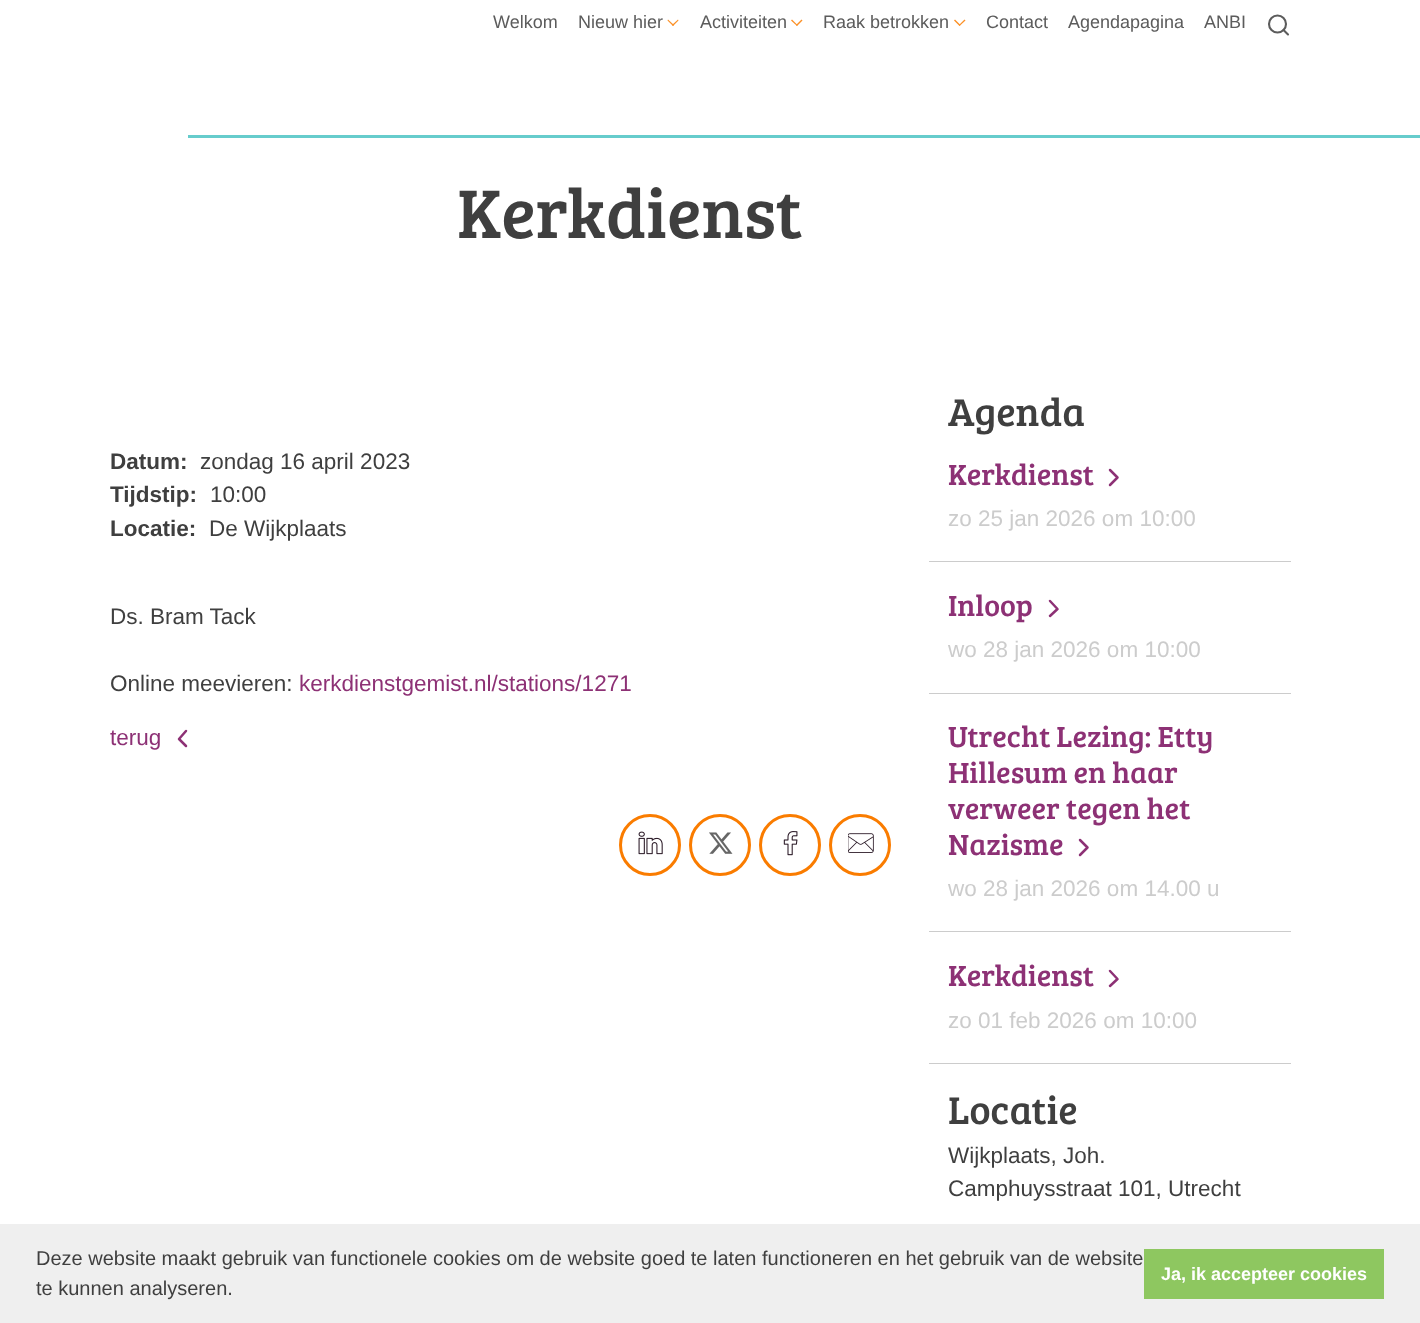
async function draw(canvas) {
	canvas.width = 1420;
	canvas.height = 1323;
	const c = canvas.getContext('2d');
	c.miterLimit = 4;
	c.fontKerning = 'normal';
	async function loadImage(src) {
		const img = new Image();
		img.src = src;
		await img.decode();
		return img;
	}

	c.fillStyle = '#fff';
	c.fillRect(0, 0, 1420, 1323);
	c.font = '18px Liberation Sans';
	c.fillStyle = '#5c5c5c';
	c.fillText('Welkom', 493, 28);
	c.fillText('Nieuw hier', 578, 28);
	c.fillStyle = '#fb9026';
	c.beginPath();
	c.moveTo(678.5, 20.5);
	c.lineTo(673, 26);
	c.lineTo(672, 25);
	c.lineTo(678, 19.5);
	c.closePath();
	c.fill();
	c.beginPath();
	c.moveTo(674, 25);
	c.lineTo(673, 26);
	c.lineTo(667.5, 20.5);
	c.lineTo(668, 19.5);
	c.closePath();
	c.fill();
	c.fillStyle = '#5c5c5c';
	c.fillText('Activiteiten', 700, 28);
	c.fillStyle = '#fb9026';
	c.beginPath();
	c.moveTo(802.5, 20.5);
	c.lineTo(797, 26);
	c.lineTo(796, 25);
	c.lineTo(801.5, 19.5);
	c.closePath();
	c.fill();
	c.beginPath();
	c.moveTo(797.5, 25);
	c.lineTo(797, 26);
	c.lineTo(791, 20.5);
	c.lineTo(792, 19.5);
	c.closePath();
	c.fill();
	c.fillStyle = '#5c5c5c';
	c.fillText('Raak betrokken', 823, 28);
	c.fillStyle = '#fb9026';
	c.beginPath();
	c.moveTo(965.5, 20.5);
	c.lineTo(959.5, 26);
	c.lineTo(959, 25);
	c.lineTo(964.5, 19.5);
	c.closePath();
	c.fill();
	c.beginPath();
	c.moveTo(960.5, 25);
	c.lineTo(959.5, 26);
	c.lineTo(954, 20.5);
	c.lineTo(955, 19.5);
	c.closePath();
	c.fill();
	c.fillStyle = '#5c5c5c';
	for (const [text, x, y] of [
		['Contact', 986, 28],
		['Agendapagina', 1068, 28],
		['ANBI', 1204, 28],
	]) {
		c.fillText(text, x, y);
	}
	c.beginPath();
	c.arc(1277.5, 24, 8.5, 0, 2 * Math.PI);
	c.strokeStyle = '#5c5c5c';
	c.lineWidth = 2.1;
	c.stroke();
	c.beginPath();
	c.moveTo(1288, 34.5);
	c.lineTo(1283.5, 30);
	c.lineCap = 'round';
	c.lineJoin = 'round';
	c.stroke();
	c.fillStyle = '#6cc';
	c.fillRect(188, 135, 1232, 3);
	c.font = '71px Bree Serif';
	c.fillStyle = '#3f3f3f';
	c.fillText('Kerkdienst', 457, 238);
	c.font = 'bold 22.5px Liberation Sans';
	c.fillText('Datum:', 110, 469);
	c.font = '22.5px Liberation Sans';
	c.fillText('zondag 16 april 2023', 200, 469);
	c.font = 'bold 22.5px Liberation Sans';
	c.fillText('Tijdstip:', 110, 502);
	c.font = '22.5px Liberation Sans';
	c.fillText('10:00', 210, 502);
	c.font = 'bold 22.5px Liberation Sans';
	c.fillText('Locatie:', 110, 536);
	c.font = '22.5px Liberation Sans';
	for (const [text, x, y] of [
		['De Wijkplaats', 209, 536],
		['Ds. Bram Tack', 110, 624],
		['Online meevieren:', 110, 691],
	]) {
		c.fillText(text, x, y);
	}
	c.fillStyle = '#8d3175';
	c.fillText('kerkdienstgemist.nl/stations/1271', 299, 691);
	c.fillText('terug', 110, 745);
	c.beginPath();
	c.moveTo(186, 746);
	c.lineTo(179, 739);
	c.lineTo(186, 731);
	c.strokeStyle = '#8d3175';
	c.lineWidth = 2.5;
	c.stroke();
	c.beginPath();
	c.arc(650, 845, 29.5, 0, 2 * Math.PI);
	c.strokeStyle = '#fa7c00';
	c.lineWidth = 3;
	c.stroke();
	c.drawImage(await loadImage('img1.png'), 638, 831, 25, 24);
	c.beginPath();
	c.arc(720, 845, 29.5, 0, 2 * Math.PI);
	c.stroke();
	c.drawImage(await loadImage('img2.png'), 709, 832, 24, 22);
	c.beginPath();
	c.arc(790, 845, 29.5, 0, 2 * Math.PI);
	c.stroke();
	c.drawImage(await loadImage('img3.png'), 783, 831, 15, 25);
	c.beginPath();
	c.arc(860, 845, 29.5, 0, 2 * Math.PI);
	c.stroke();
	c.drawImage(await loadImage('img4.png'), 848, 833, 26, 20);
	c.font = '40px Bree Serif';
	c.fillStyle = '#3f3f3f';
	c.fillText('Agenda', 948, 426);
	c.fillStyle = '#ccc';
	c.fillRect(929, 561, 362, 1);
	c.font = '30px Bree Serif';
	c.fillStyle = '#8d3175';
	c.fillText('Kerkdienst', 948, 485);
	c.beginPath();
	c.moveTo(1110, 485);
	c.lineTo(1117.5, 477.5);
	c.lineTo(1110, 470);
	c.strokeStyle = '#8d3175';
	c.lineWidth = 2.5;
	c.stroke();
	c.font = '22.5px Liberation Sans';
	c.fillStyle = '#ccc';
	c.fillText('zo 25 jan 2026 om 10:00', 948, 526);
	c.fillRect(929, 693, 362, 1);
	c.font = '30px Bree Serif';
	c.fillStyle = '#8d3175';
	c.fillText('Inloop', 948, 616);
	c.beginPath();
	c.moveTo(1050, 616);
	c.lineTo(1057.5, 609);
	c.lineTo(1050, 601);
	c.stroke();
	c.font = '22.5px Liberation Sans';
	c.fillStyle = '#ccc';
	c.fillText('wo 28 jan 2026 om 10:00', 948, 657);
	c.fillRect(929, 931, 362, 1);
	c.font = '30px Bree Serif';
	c.fillStyle = '#8d3175';
	for (const [text, x, y] of [
		['Utrecht Lezing: Etty', 948, 747],
		['Hillesum en haar', 948, 783],
		['verweer tegen het', 948, 819],
		['Nazisme', 948, 855],
	]) {
		c.fillText(text, x, y);
	}
	c.beginPath();
	c.moveTo(1080, 855);
	c.lineTo(1087.5, 847.5);
	c.lineTo(1080, 840);
	c.stroke();
	c.font = '22.5px Liberation Sans';
	c.fillStyle = '#ccc';
	c.fillText('wo 28 jan 2026 om 14.00 u', 948, 896);
	c.fillRect(929, 1063, 362, 1);
	c.font = '30px Bree Serif';
	c.fillStyle = '#8d3175';
	c.fillText('Kerkdienst', 948, 986);
	c.beginPath();
	c.moveTo(1110, 986);
	c.lineTo(1117.5, 979);
	c.lineTo(1110, 971);
	c.stroke();
	c.font = '22.5px Liberation Sans';
	c.fillStyle = '#ccc';
	c.fillText('zo 01 feb 2026 om 10:00', 948, 1028);
	c.font = '40px Bree Serif';
	c.fillStyle = '#3f3f3f';
	c.fillText('Locatie', 948, 1124);
	c.font = '22.5px Liberation Sans';
	c.fillText('Wijkplaats, Joh.', 948, 1163);
	c.fillText('Camphuysstraat 101, Utrecht', 948, 1196);
	c.fillStyle = '#efefef';
	c.fillRect(0, 1224, 1420, 99);
	c.font = '20px Liberation Sans';
	c.fillStyle = '#3f3f3f';
	c.fillText('Deze website maakt gebruik van functionele cookies om de website goed te laten functioneren en het gebruik van de website', 36, 1265);
	c.fillText('te kunnen analyseren.', 36, 1295);
	c.fillStyle = '#8ec760';
	c.fillRect(1144, 1249, 240, 50);
	c.font = 'bold 18px Liberation Sans';
	c.fillStyle = '#fff';
	c.fillText('Ja, ik accepteer cookies', 1161, 1280);
}

draw(document.querySelector('canvas'));
